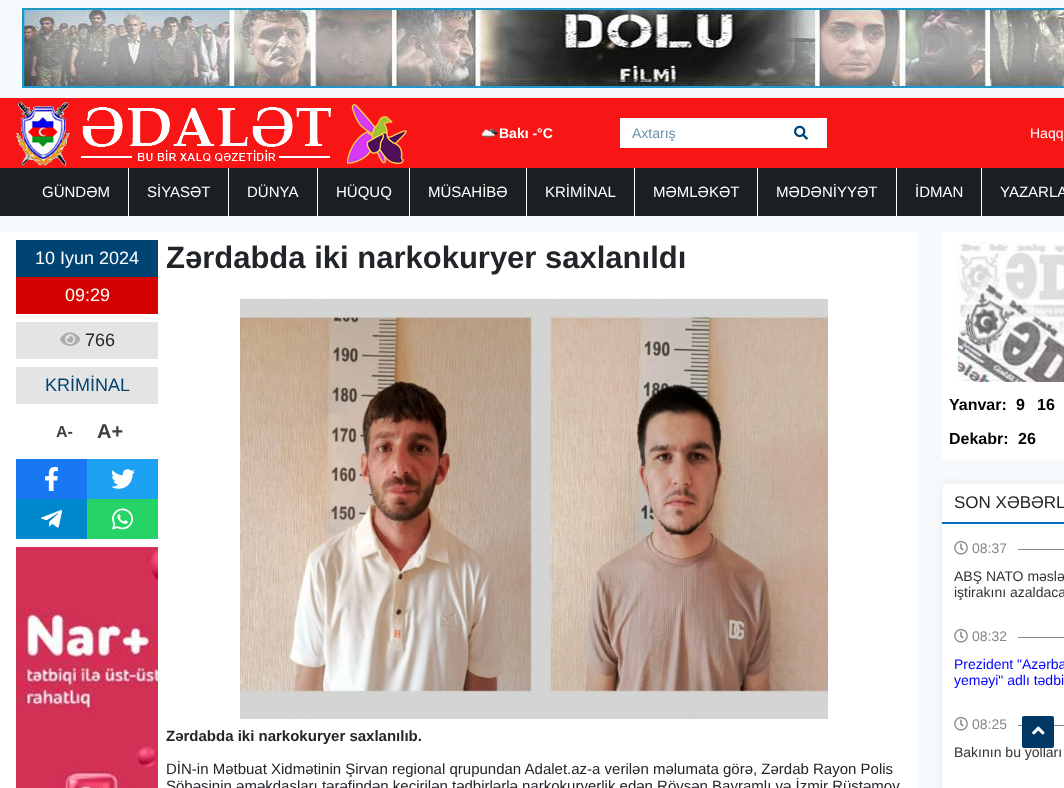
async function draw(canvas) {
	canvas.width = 1064;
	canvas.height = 788;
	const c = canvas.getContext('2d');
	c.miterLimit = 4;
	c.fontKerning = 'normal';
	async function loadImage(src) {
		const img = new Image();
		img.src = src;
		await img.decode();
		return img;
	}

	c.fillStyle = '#f7fafc';
	c.fillRect(0, 0, 1064, 788);
	c.drawImage(await loadImage('img1.png'), 22, 8, 1042, 80);
	c.fillStyle = '#f71515';
	c.fillRect(0, 98, 1064, 70);
	c.drawImage(await loadImage('img2.png'), 16, 102, 391, 64);
	c.drawImage(await loadImage('img3.png'), 481, 128, 18, 9);
	c.font = 'bold 14px Liberation Sans';
	c.fillStyle = '#fff';
	c.fillText('Bakı -°C', 499, 138);
	c.fillRect(620, 118, 207, 30);
	c.font = '14px Liberation Sans';
	c.fillStyle = '#668fab';
	c.fillText('Axtarış', 632, 138);
	c.drawImage(await loadImage('img4.png'), 794, 125, 14, 15);
	c.fillStyle = '#fff';
	c.fillText('Haqq', 1030, 138);
	c.fillStyle = '#1b1f21';
	c.fillRect(0, 168, 1064, 48);
	c.fillStyle = '#fff';
	c.fillRect(128, 168, 1, 48);
	c.font = '15px Liberation Sans';
	c.fillText('GÜNDƏM', 42, 197);
	c.fillRect(228, 168, 1, 48);
	c.fillText('SİYASƏT', 147, 197);
	c.fillRect(317, 168, 1, 48);
	c.fillText('DÜNYA', 247, 197);
	c.fillRect(409, 168, 1, 48);
	c.fillText('HÜQUQ', 336, 197);
	c.fillRect(526, 168, 1, 48);
	c.fillText('MÜSAHİBƏ', 428, 197);
	c.fillRect(634, 168, 1, 48);
	c.fillText('KRİMİNAL', 545, 197);
	c.fillRect(757, 168, 1, 48);
	c.fillText('MƏMLƏKƏT', 653, 197);
	c.fillRect(896, 168, 1, 48);
	c.fillText('MƏDƏNİYYƏT', 776, 197);
	c.fillRect(981, 168, 1, 48);
	c.fillText('İDMAN', 915, 197);
	c.fillText('YAZARLA', 1000, 197);
	c.fillRect(0, 232, 918, 556);
	c.fillStyle = '#004473';
	c.fillRect(16, 240, 142, 37);
	c.font = '18px Liberation Sans';
	c.fillStyle = '#fff';
	c.fillText('10 Iyun 2024', 35, 264);
	c.fillStyle = '#d50000';
	c.fillRect(16, 277, 142, 37);
	c.fillStyle = '#fff';
	c.fillText('09:29', 65, 301);
	c.fillStyle = '#e4e4e4';
	c.fillRect(16, 322, 142, 37);
	c.drawImage(await loadImage('img5.png'), 60, 332, 21, 14);
	c.fillStyle = '#212529';
	c.fillText('766', 85, 346);
	c.fillStyle = '#e4e4e4';
	c.fillRect(16, 367, 142, 37);
	c.fillStyle = '#004473';
	c.fillText('KRİMİNAL', 45, 391);
	c.font = 'bold 16px Liberation Sans';
	c.fillStyle = '#3c3f44';
	c.fillText('A-', 56, 437);
	c.font = 'bold 20px Liberation Sans';
	c.fillText('A+', 97, 438);
	c.fillStyle = '#1877f2';
	c.fillRect(16, 459, 71, 40);
	c.drawImage(await loadImage('img6.png'), 45, 467, 13, 24);
	c.fillStyle = '#1da1f2';
	c.fillRect(87, 459, 71, 40);
	c.drawImage(await loadImage('img7.png'), 111, 469, 24, 20);
	c.fillStyle = '#08c';
	c.fillRect(16, 499, 71, 40);
	c.drawImage(await loadImage('img8.png'), 41, 510, 21, 18);
	c.fillStyle = '#25d366';
	c.fillRect(87, 499, 71, 40);
	c.drawImage(await loadImage('img9.png'), 112, 508, 21, 22);
	c.drawImage(await loadImage('img10.png'), 16, 547, 142, 241);
	c.font = 'bold 31px Liberation Sans';
	c.fillStyle = '#212529';
	c.fillText('Zərdabda iki narkokuryer saxlanıldı', 166, 268);
	c.drawImage(await loadImage('img11.png'), 240, 299, 588, 420);
	c.font = 'bold 15px Liberation Sans';
	c.fillText('Zərdabda iki narkokuryer saxlanılıb.', 166, 741);
	c.font = '15px Liberation Sans';
	c.fillText('DİN-in Mətbuat Xidmətinin Şirvan regional qrupundan Adalet.az-a verilən məlumata görə, Zərdab Rayon Polis', 166, 774);
	c.fillText('Şöbəsinin əməkdaşları tərəfindən keçirilən tədbirlərlə narkokuryerlik edən Rövşən Bayramlı və İzmir Rüstəmov', 166, 791);
	c.fillStyle = '#fff';
	c.fillRect(942, 232, 122, 228);
	c.drawImage(await loadImage('img12.png'), 958, 241, 106, 141);
	c.font = 'bold 16px Liberation Sans';
	c.fillStyle = '#000';
	for (const [text, x, y] of [
		['Yanvar:', 949, 410],
		['9', 1016, 410],
		['16', 1037, 410],
		['Dekabr:', 949, 444],
		['26', 1018, 444],
	]) {
		c.fillText(text, x, y);
	}
	c.fillStyle = '#e6e6e6';
	c.filter = 'blur(5px)';
	c.beginPath();
	c.roundRect(943, 484, 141, 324, 5);
	c.fill();
	c.filter = 'none';
	c.fillStyle = '#fff';
	c.beginPath();
	c.roundRect(942, 484, 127, 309, 5);
	c.fill();
	c.fillStyle = '#0172c0';
	c.fillRect(942, 522, 122, 2);
	c.font = '17px Liberation Sans';
	c.fillStyle = '#212529';
	c.fillText('SON XƏBƏRL', 954, 508);
	c.drawImage(await loadImage('img13.png'), 954, 541, 14, 14);
	c.font = '14px Liberation Sans';
	c.fillStyle = '#878787';
	c.fillText('08:37', 972, 553);
	c.fillRect(1018, 549, 46, 1);
	c.fillStyle = '#333';
	c.fillText('ABŞ NATO məslə', 954, 581);
	c.fillText('iştirakını azaldaca', 954, 597);
	c.drawImage(await loadImage('img13.png'), 954, 629, 14, 14);
	c.fillStyle = '#878787';
	c.fillText('08:32', 972, 641);
	c.fillRect(1018, 637, 46, 1);
	c.fillStyle = '#00f';
	c.fillText('Prezident "Azərba', 954, 669);
	c.fillText('yeməyi" adlı tədbi', 954, 685);
	c.drawImage(await loadImage('img13.png'), 954, 717, 14, 14);
	c.fillStyle = '#878787';
	c.fillText('08:25', 972, 729);
	c.fillRect(1018, 725, 46, 1);
	c.fillStyle = '#333';
	c.fillText('Bakının bu yolları', 954, 757);
	c.fillStyle = '#003865';
	c.beginPath();
	c.roundRect(1022, 716, 32, 32, 2);
	c.fill();
	c.drawImage(await loadImage('img14.png'), 1032, 726, 13, 9);
}

draw(document.querySelector('canvas'));
